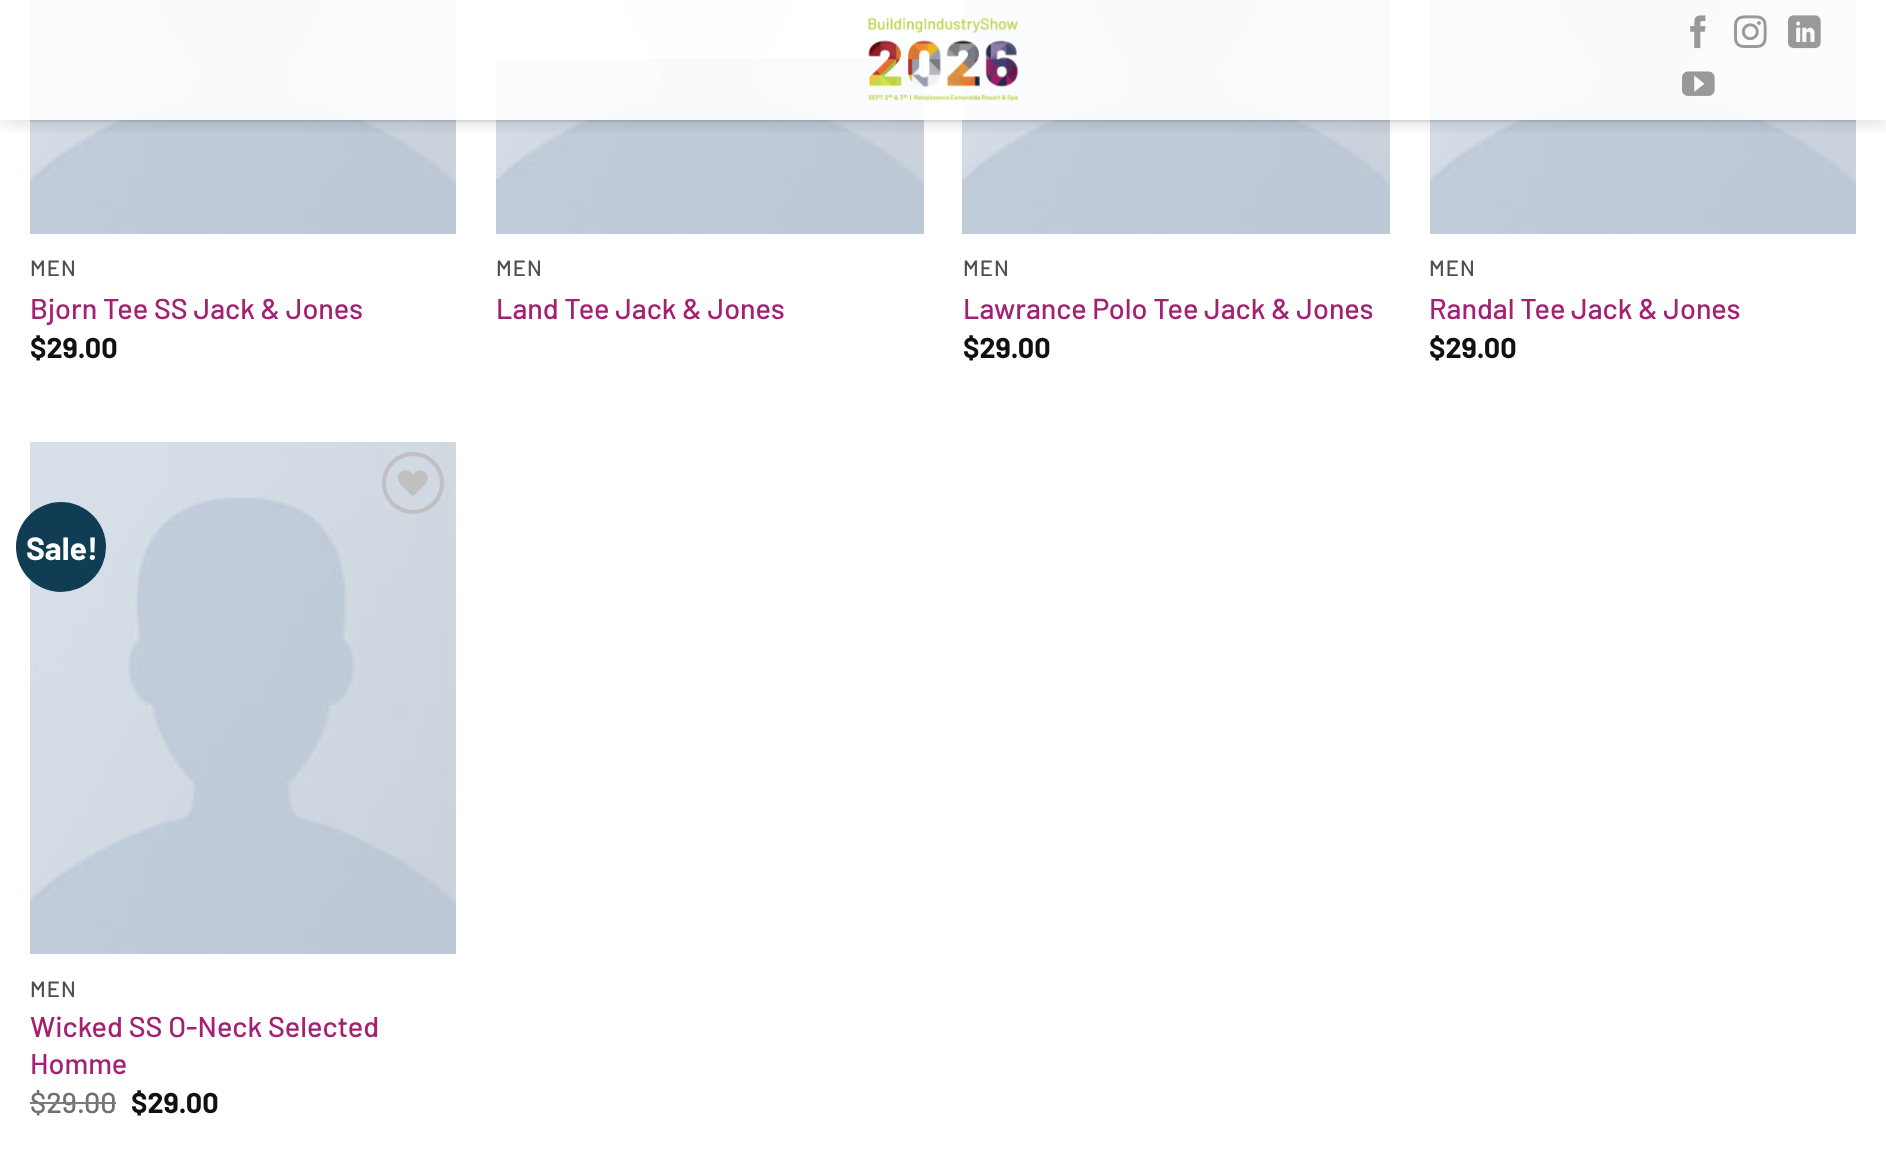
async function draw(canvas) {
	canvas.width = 1886;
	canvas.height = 1171;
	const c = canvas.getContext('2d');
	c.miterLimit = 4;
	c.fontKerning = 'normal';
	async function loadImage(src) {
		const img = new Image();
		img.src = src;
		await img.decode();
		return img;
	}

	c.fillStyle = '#fff';
	c.fillRect(0, 0, 1886, 1171);
	c.drawImage(await loadImage('img6.png'), 30, 0, 426, 234);
	c.drawImage(await loadImage('img7.png'), 496, 0, 428, 234);
	c.fillStyle = '#ffffffcf';
	c.fillRect(496, 0, 428, 58);
	c.drawImage(await loadImage('img8.png'), 962, 0, 428, 234);
	c.drawImage(await loadImage('img6.png'), 1430, 0, 426, 234);
	c.save();
	c.beginPath();
	c.rect(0, 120, 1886, 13);
	c.clip();
	c.fillStyle = '#00000026';
	c.filter = 'blur(10px)';
	c.beginPath();
	c.rect(2, 2, 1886, 120);
	c.fill();
	c.filter = 'none';
	c.restore();
	c.fillStyle = '#ffffffe6';
	c.fillRect(30, 0, 1826, 120);
	c.drawImage(await loadImage('img1.png'), 868, 17, 151, 85);
	c.drawImage(await loadImage('img2.png'), 1690, 15, 16, 34);
	c.drawImage(await loadImage('img3.png'), 1734, 15, 33, 34);
	c.drawImage(await loadImage('img4.png'), 1788, 15, 33, 34);
	c.drawImage(await loadImage('img5.png'), 1682, 71, 33, 25);
	c.fillStyle = '#2323231a';
	c.fillRect(30, 120, 1826, 2);
	c.letterSpacing = '1px';
	c.font = '500 22px Barlow';
	c.fillStyle = '#4f4f4f';
	c.fillText('MEN', 30, 276);
	c.letterSpacing = '0px';
	c.font = '500 28.75px Barlow';
	c.fillStyle = '#a32173';
	c.fillText('Bjorn Tee SS Jack & Jones', 30, 319);
	c.font = 'bold 28.75px Barlow';
	c.fillStyle = '#111';
	c.fillText('$29.00', 30, 358);
	c.letterSpacing = '1px';
	c.font = '500 22px Barlow';
	c.fillStyle = '#4f4f4f';
	c.fillText('MEN', 496, 276);
	c.letterSpacing = '0px';
	c.font = '500 28.75px Barlow';
	c.fillStyle = '#a32173';
	c.fillText('Land Tee Jack & Jones', 496, 319);
	c.letterSpacing = '1px';
	c.font = '500 22px Barlow';
	c.fillStyle = '#4f4f4f';
	c.fillText('MEN', 963, 276);
	c.letterSpacing = '0px';
	c.font = '500 28.75px Barlow';
	c.fillStyle = '#a32173';
	c.fillText('Lawrance Polo Tee Jack & Jones', 963, 319);
	c.font = 'bold 28.75px Barlow';
	c.fillStyle = '#111';
	c.fillText('$29.00', 963, 358);
	c.letterSpacing = '1px';
	c.font = '500 22px Barlow';
	c.fillStyle = '#4f4f4f';
	c.fillText('MEN', 1429, 276);
	c.letterSpacing = '0px';
	c.font = '500 28.75px Barlow';
	c.fillStyle = '#a32173';
	c.fillText('Randal Tee Jack & Jones', 1429, 319);
	c.font = 'bold 28.75px Barlow';
	c.fillStyle = '#111';
	c.fillText('$29.00', 1429, 358);
	c.drawImage(await loadImage('img9.png'), 30, 442, 426, 512);
	c.fillStyle = '#103d54';
	c.beginPath();
	c.arc(61, 547, 45, 0, 2 * Math.PI);
	c.fill();
	c.font = 'bold 32px Barlow';
	c.fillStyle = '#fff';
	c.fillText('Sale!', 26, 560);
	c.beginPath();
	c.arc(413, 483, 29, 0, 2 * Math.PI);
	c.strokeStyle = '#c0c0c0';
	c.lineWidth = 4;
	c.stroke();
	c.drawImage(await loadImage('img10.png'), 398, 470, 30, 26);
	c.letterSpacing = '1px';
	c.font = '500 22px Barlow';
	c.fillStyle = '#4f4f4f';
	c.fillText('MEN', 30, 997);
	c.letterSpacing = '0px';
	c.font = '500 28.75px Barlow';
	c.fillStyle = '#a32173';
	c.fillText('Wicked SS O-Neck Selected', 30, 1037);
	c.fillText('Homme', 30, 1074);
	c.fillStyle = '#707070';
	c.fillText('$29.00', 30, 1113);
	c.fillStyle = '#7b7b7b';
	c.fillRect(30, 1102, 86, 2);
	c.font = 'bold 28.75px Barlow';
	c.fillStyle = '#111';
	c.fillText('$29.00', 131, 1113);
}

draw(document.querySelector('canvas'));
